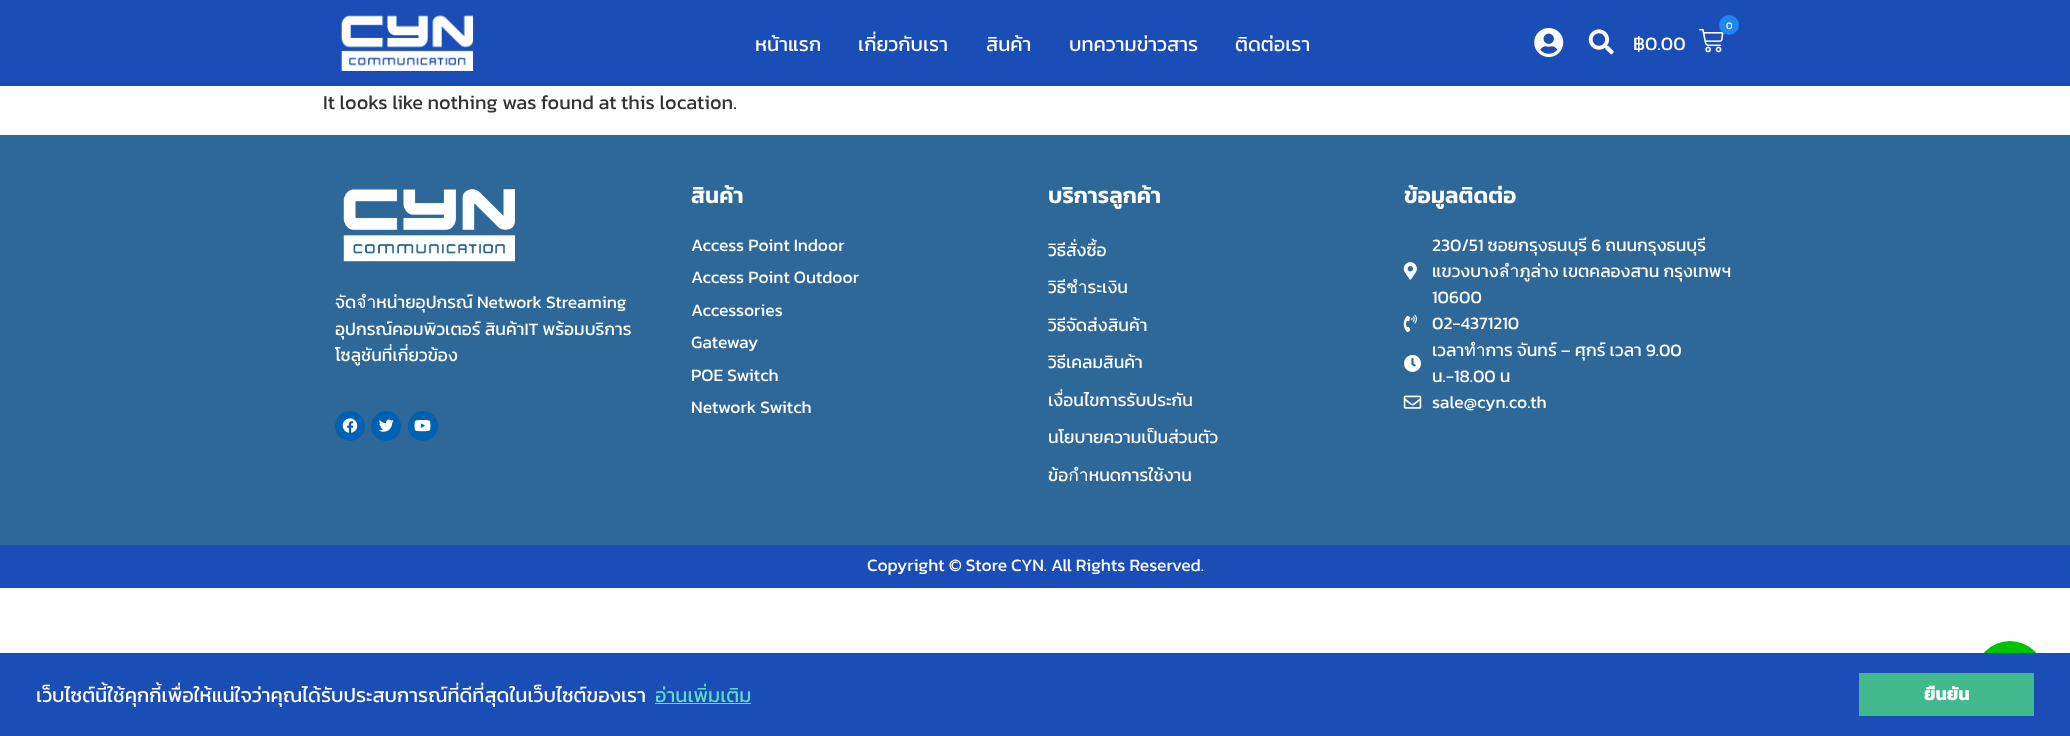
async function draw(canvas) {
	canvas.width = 2070;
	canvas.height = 736;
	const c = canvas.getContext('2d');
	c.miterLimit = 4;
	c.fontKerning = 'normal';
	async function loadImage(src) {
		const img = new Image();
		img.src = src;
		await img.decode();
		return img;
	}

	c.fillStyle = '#fff';
	c.fillRect(0, 0, 2070, 736);
	c.fillStyle = '#1a4db6';
	c.fillRect(0, 0, 2070, 86);
	c.drawImage(await loadImage('img1.png'), 341, 15, 133, 56);
	c.font = '20px Kanit';
	c.fillStyle = '#fff';
	for (const [text, x, y] of [
		['หน้าแรก', 755, 51],
		['เกี่ยวกับเรา', 858, 51],
		['สินค้า', 986, 51],
		['บทความข่าวสาร', 1069, 51],
		['ติดต่อเรา', 1235, 51],
	]) {
		c.fillText(text, x, y);
	}
	c.drawImage(await loadImage('img2.png'), 1534, 28, 30, 29);
	c.drawImage(await loadImage('img3.png'), 1588, 29, 26, 26);
	c.drawImage(await loadImage('img4.png'), 1699, 28, 25, 25);
	c.fillStyle = '#1e87f0';
	c.beginPath();
	c.arc(1729, 25, 10, 0, 2 * Math.PI);
	c.fill();
	c.font = '10px Kanit';
	c.fillStyle = '#fff';
	c.fillText('0', 1726, 29);
	c.font = '19px Kanit';
	c.fillText('฿0.00', 1633, 50);
	c.font = '20px Kanit';
	c.fillStyle = '#333';
	c.fillText('It looks like nothing was found at this location.', 323, 109);
	c.fillStyle = '#2d6899';
	c.fillRect(0, 135, 2070, 410);
	c.drawImage(await loadImage('img5.png'), 343, 189, 172, 73);
	c.font = '17.5px Kanit';
	c.fillStyle = '#fff';
	for (const [text, x, y] of [
		['จัดจำหน่ายอุปกรณ์ Network Streaming', 335, 308],
		['อุปกรณ์คอมพิวเตอร์ สินค้าIT พร้อมบริการ', 335, 335],
		['โซลูชันที่เกี่ยวข้อง', 335, 361],
	]) {
		c.fillText(text, x, y);
	}
	c.fillStyle = '#0061b2';
	c.beginPath();
	c.arc(350, 426, 15, 0, 2 * Math.PI);
	c.fill();
	c.drawImage(await loadImage('img6.png'), 342, 418, 16, 15);
	c.beginPath();
	c.arc(386, 426, 15, 0, 2 * Math.PI);
	c.fill();
	c.drawImage(await loadImage('img7.png'), 379, 419, 15, 13);
	c.beginPath();
	c.arc(423, 426, 15, 0, 2 * Math.PI);
	c.fill();
	c.drawImage(await loadImage('img8.png'), 414, 420, 17, 12);
	c.font = '600 22.5px Kanit';
	c.fillStyle = '#fff';
	c.fillText('สินค้า', 691, 203);
	c.font = '17.5px Kanit';
	for (const [text, x, y] of [
		['Access Point Indoor', 691, 251],
		['Access Point Outdoor', 691, 283],
		['Accessories', 691, 316],
		['Gateway', 691, 348],
		['POE Switch', 691, 381],
		['Network Switch', 691, 413],
	]) {
		c.fillText(text, x, y);
	}
	c.font = '600 22.5px Kanit';
	c.fillText('บริการลูกค้า', 1048, 203);
	c.font = '17.5px Kanit';
	for (const [text, x, y] of [
		['วิธีสั่งซื้อ', 1048, 256],
		['วิธีชำระเงิน', 1048, 293],
		['วิธีจัดส่งสินค้า', 1048, 331],
		['วิธีเคลมสินค้า', 1048, 368],
		['เงื่อนไขการรับประกัน', 1048, 406],
		['นโยบายความเป็นส่วนตัว', 1048, 443],
		['ข้อกำหนดการใช้งาน', 1048, 481],
	]) {
		c.fillText(text, x, y);
	}
	c.font = '600 22.5px Kanit';
	c.fillText('ข้อมูลติดต่อ', 1404, 203);
	c.drawImage(await loadImage('img9.png'), 1403, 262, 14, 18);
	c.font = '17.5px Kanit';
	for (const [text, x, y] of [
		['230/51 ซอยกรุงธนบุรี 6 ถนนกรุงธนบุรี', 1432, 251],
		['แขวงบางลำภูล่าง เขตคลองสาน กรุงเทพฯ', 1432, 277],
		['10600', 1432, 303],
	]) {
		c.fillText(text, x, y);
	}
	c.drawImage(await loadImage('img10.png'), 1403, 314, 14, 19);
	c.fillText('02-4371210', 1432, 329);
	c.drawImage(await loadImage('img11.png'), 1404, 355, 17, 17);
	c.fillText('เวลาทำการ จันทร์ – ศุกร์ เวลา 9.00', 1432, 356);
	c.fillText('น.-18.00 น', 1432, 382);
	c.drawImage(await loadImage('img12.png'), 1403, 395, 19, 14);
	c.fillText('sale@cyn.co.th', 1432, 408);
	c.fillStyle = '#1a4db6';
	c.fillRect(0, 545, 2070, 43);
	c.fillStyle = '#fff';
	c.fillText('Copyright © Store CYN. All Rights Reserved.', 867, 571);
	c.fillStyle = '#0000001c';
	c.filter = 'blur(3px)';
	c.beginPath();
	c.roundRect(1975, 644, 70, 70, 35);
	c.fill();
	c.filter = 'none';
	c.fillStyle = '#00c300';
	c.beginPath();
	c.arc(2010, 676, 35, 0, 2 * Math.PI);
	c.fill();
	c.fillStyle = '#1a4db6';
	c.fillRect(0, 653, 2070, 83);
	c.font = '20px Kanit';
	c.fillStyle = '#fff';
	c.fillText('เว็บไซต์นี้ใช้คุกกี้เพื่อให้แน่ใจว่าคุณได้รับประสบการณ์ที่ดีที่สุดในเว็บไซต์ของเรา', 36, 702);
	c.fillStyle = '#5edbc5';
	c.fillText('อ่านเพิ่มเติม', 655, 702);
	c.fillRect(655, 703, 96, 1);
	c.fillStyle = '#41b98c';
	c.fillRect(1859, 673, 175, 43);
	c.font = 'bold 18px Kanit';
	c.fillStyle = '#fff';
	c.fillText('ยืนยัน', 1924, 700);
}

draw(document.querySelector('canvas'));
